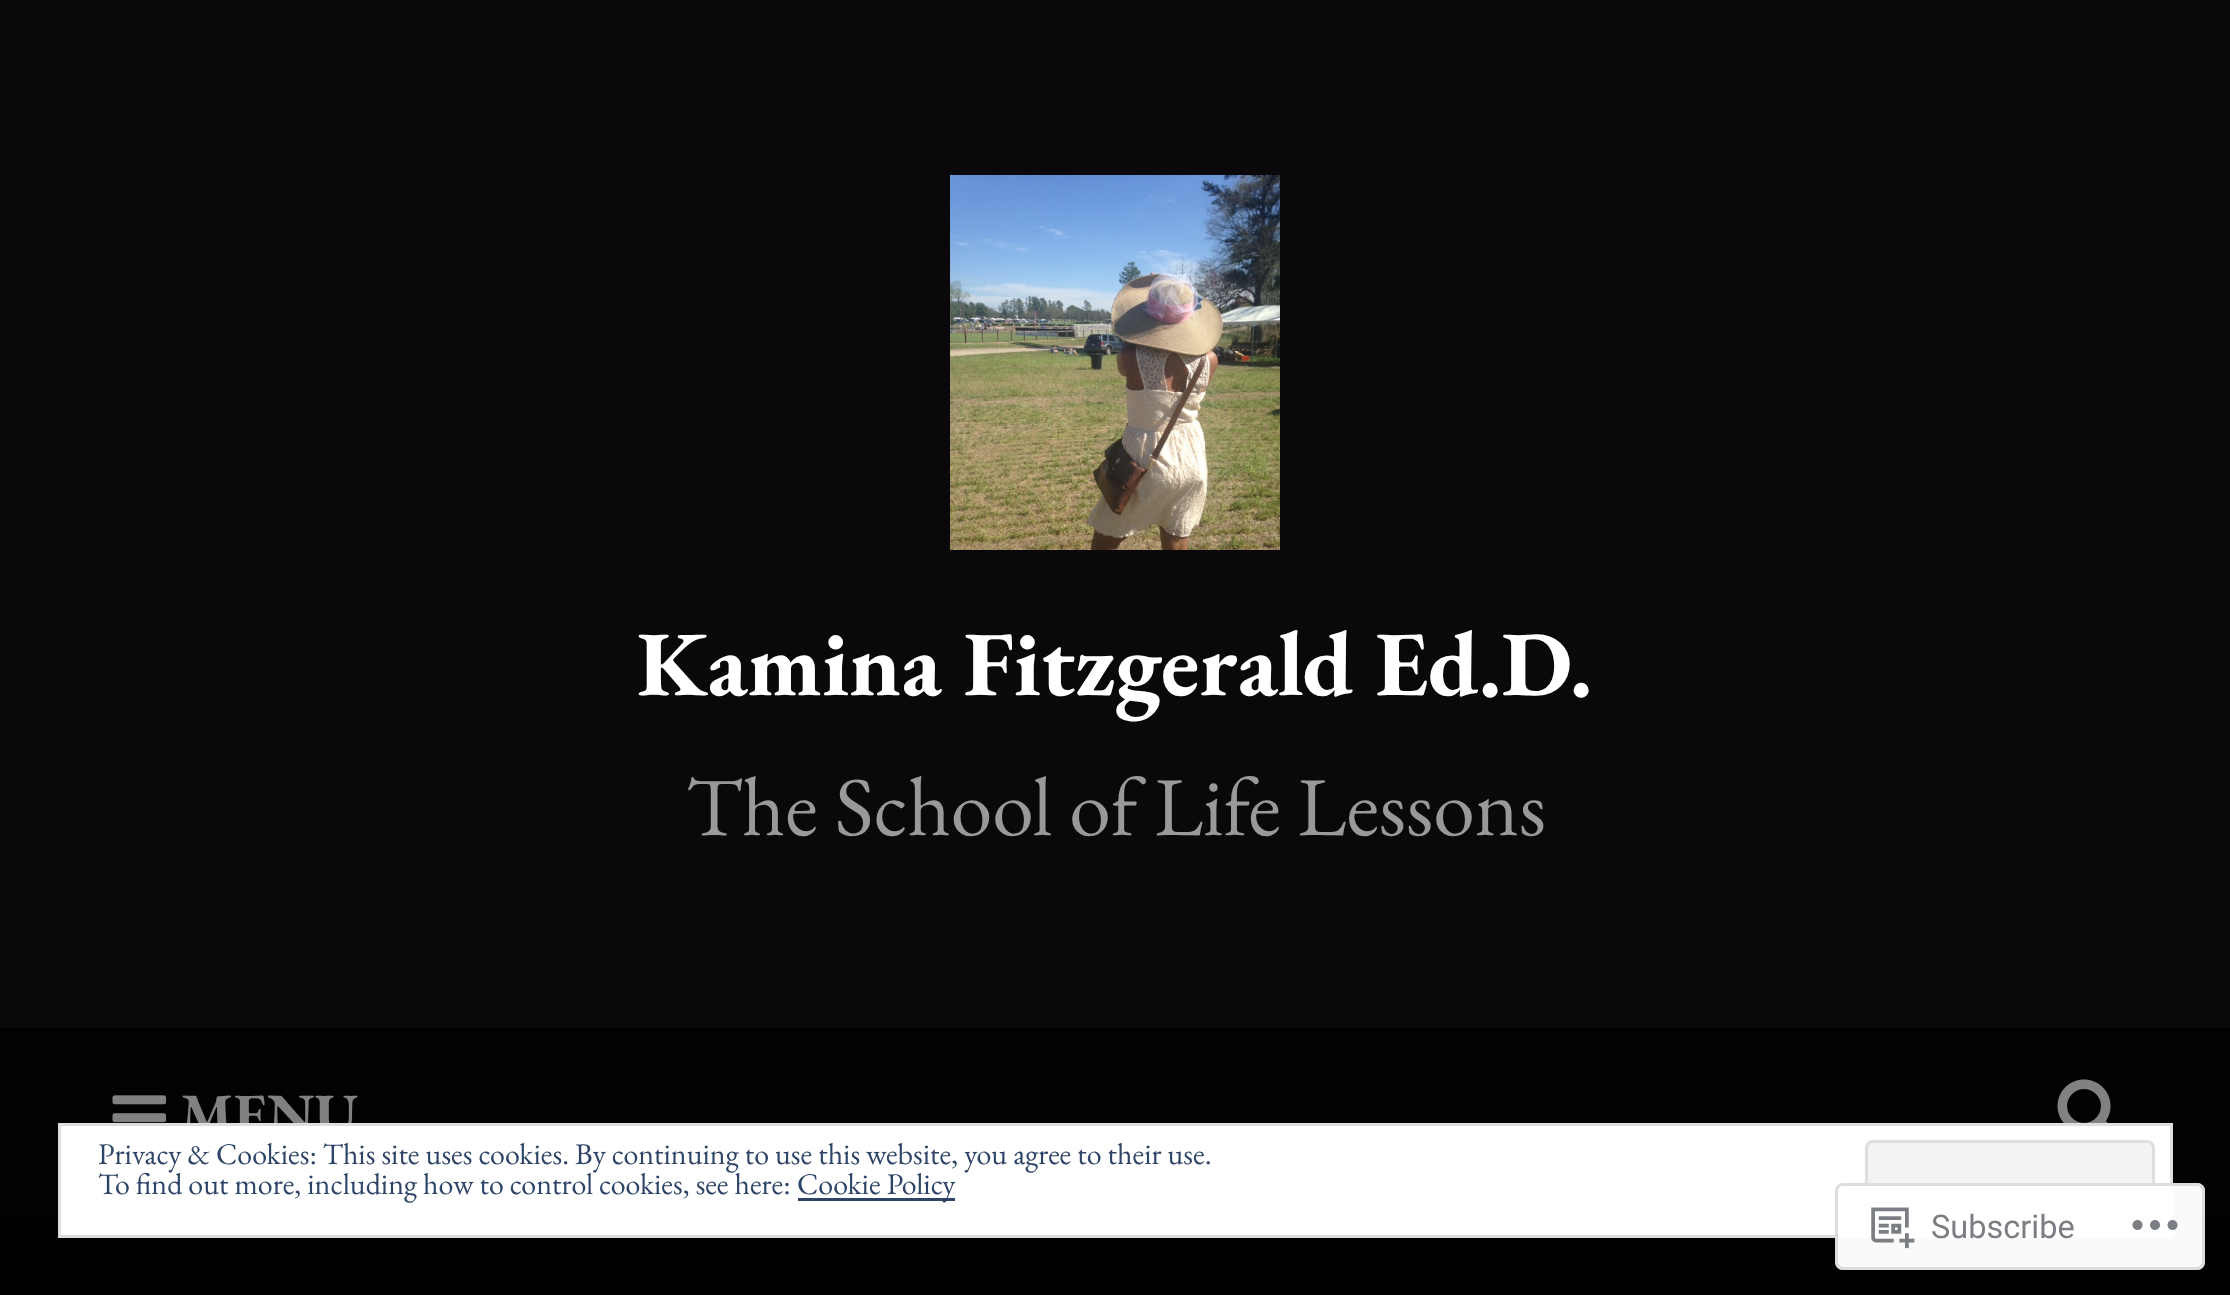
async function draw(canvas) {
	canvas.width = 2230;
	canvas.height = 1295;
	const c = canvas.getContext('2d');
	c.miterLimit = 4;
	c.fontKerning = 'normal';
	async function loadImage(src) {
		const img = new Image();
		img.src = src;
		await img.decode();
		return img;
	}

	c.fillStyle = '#010101';
	c.fillRect(0, 0, 2230, 1295);
	c.fillStyle = '#0a080a';
	c.fillRect(0, 0, 2230, 1028);
	c.drawImage(await loadImage('img1.png'), 950, 175, 330, 375);
	c.font = 'bold 92.1px EB Garamond';
	c.fillStyle = '#fff';
	c.fillText('Kamina Fitzgerald Ed.D.', 637, 695);
	c.font = '83.75px EB Garamond';
	c.fillStyle = '#999';
	c.fillText('The School of Life Lessons', 686, 835);
	c.fillStyle = '#030104';
	c.fillRect(0, 1028, 2230, 190);
	c.drawImage(await loadImage('img2.png'), 112, 1095, 55, 28);
	c.font = 'bold 58.5px EB Garamond';
	c.fillStyle = '#818082';
	c.fillText('MENU', 180, 1134);
	c.drawImage(await loadImage('img3.png'), 2057, 1079, 54, 44);
	c.fillStyle = '#fff';
	c.beginPath();
	c.rect(59.5, 1124.5, 2112, 112);
	c.fill();
	c.strokeStyle = '#dedede';
	c.lineWidth = 3;
	c.stroke();
	c.font = '30px EB Garamond';
	c.fillStyle = '#2e4467';
	c.fillText('Privacy & Cookies: This site uses cookies. By continuing to use this website, you agree to their use.', 98, 1164);
	c.fillStyle = '#f3f3f3';
	c.beginPath();
	c.roundRect(1866.5, 1141.5, 287, 77, 6.5);
	c.fill();
	c.stroke();
	c.fillStyle = '#2e4467';
	c.fillText('To find out more, including how to control cookies, see here:', 98, 1194);
	c.fillRect(798, 1198, 157, 3);
	c.fillText('Cookie Policy', 797, 1194);
	c.fillStyle = '#fffffffa';
	c.beginPath();
	c.roundRect(1835, 1183, 370, 87, 8);
	c.fill();
	c.beginPath();
	c.roundRect(1836.5, 1184.5, 367, 84, 6.5);
	c.strokeStyle = '#dcdcdefa';
	c.stroke();
	c.drawImage(await loadImage('img4.png'), 1871, 1207, 44, 42);
	c.font = '32.5px Roboto';
	c.fillStyle = '#7b7f84';
	c.fillText('Subscribe', 1931, 1238);
	c.drawImage(await loadImage('img5.png'), 2132, 1220, 46, 10);
}

draw(document.querySelector('canvas'));
